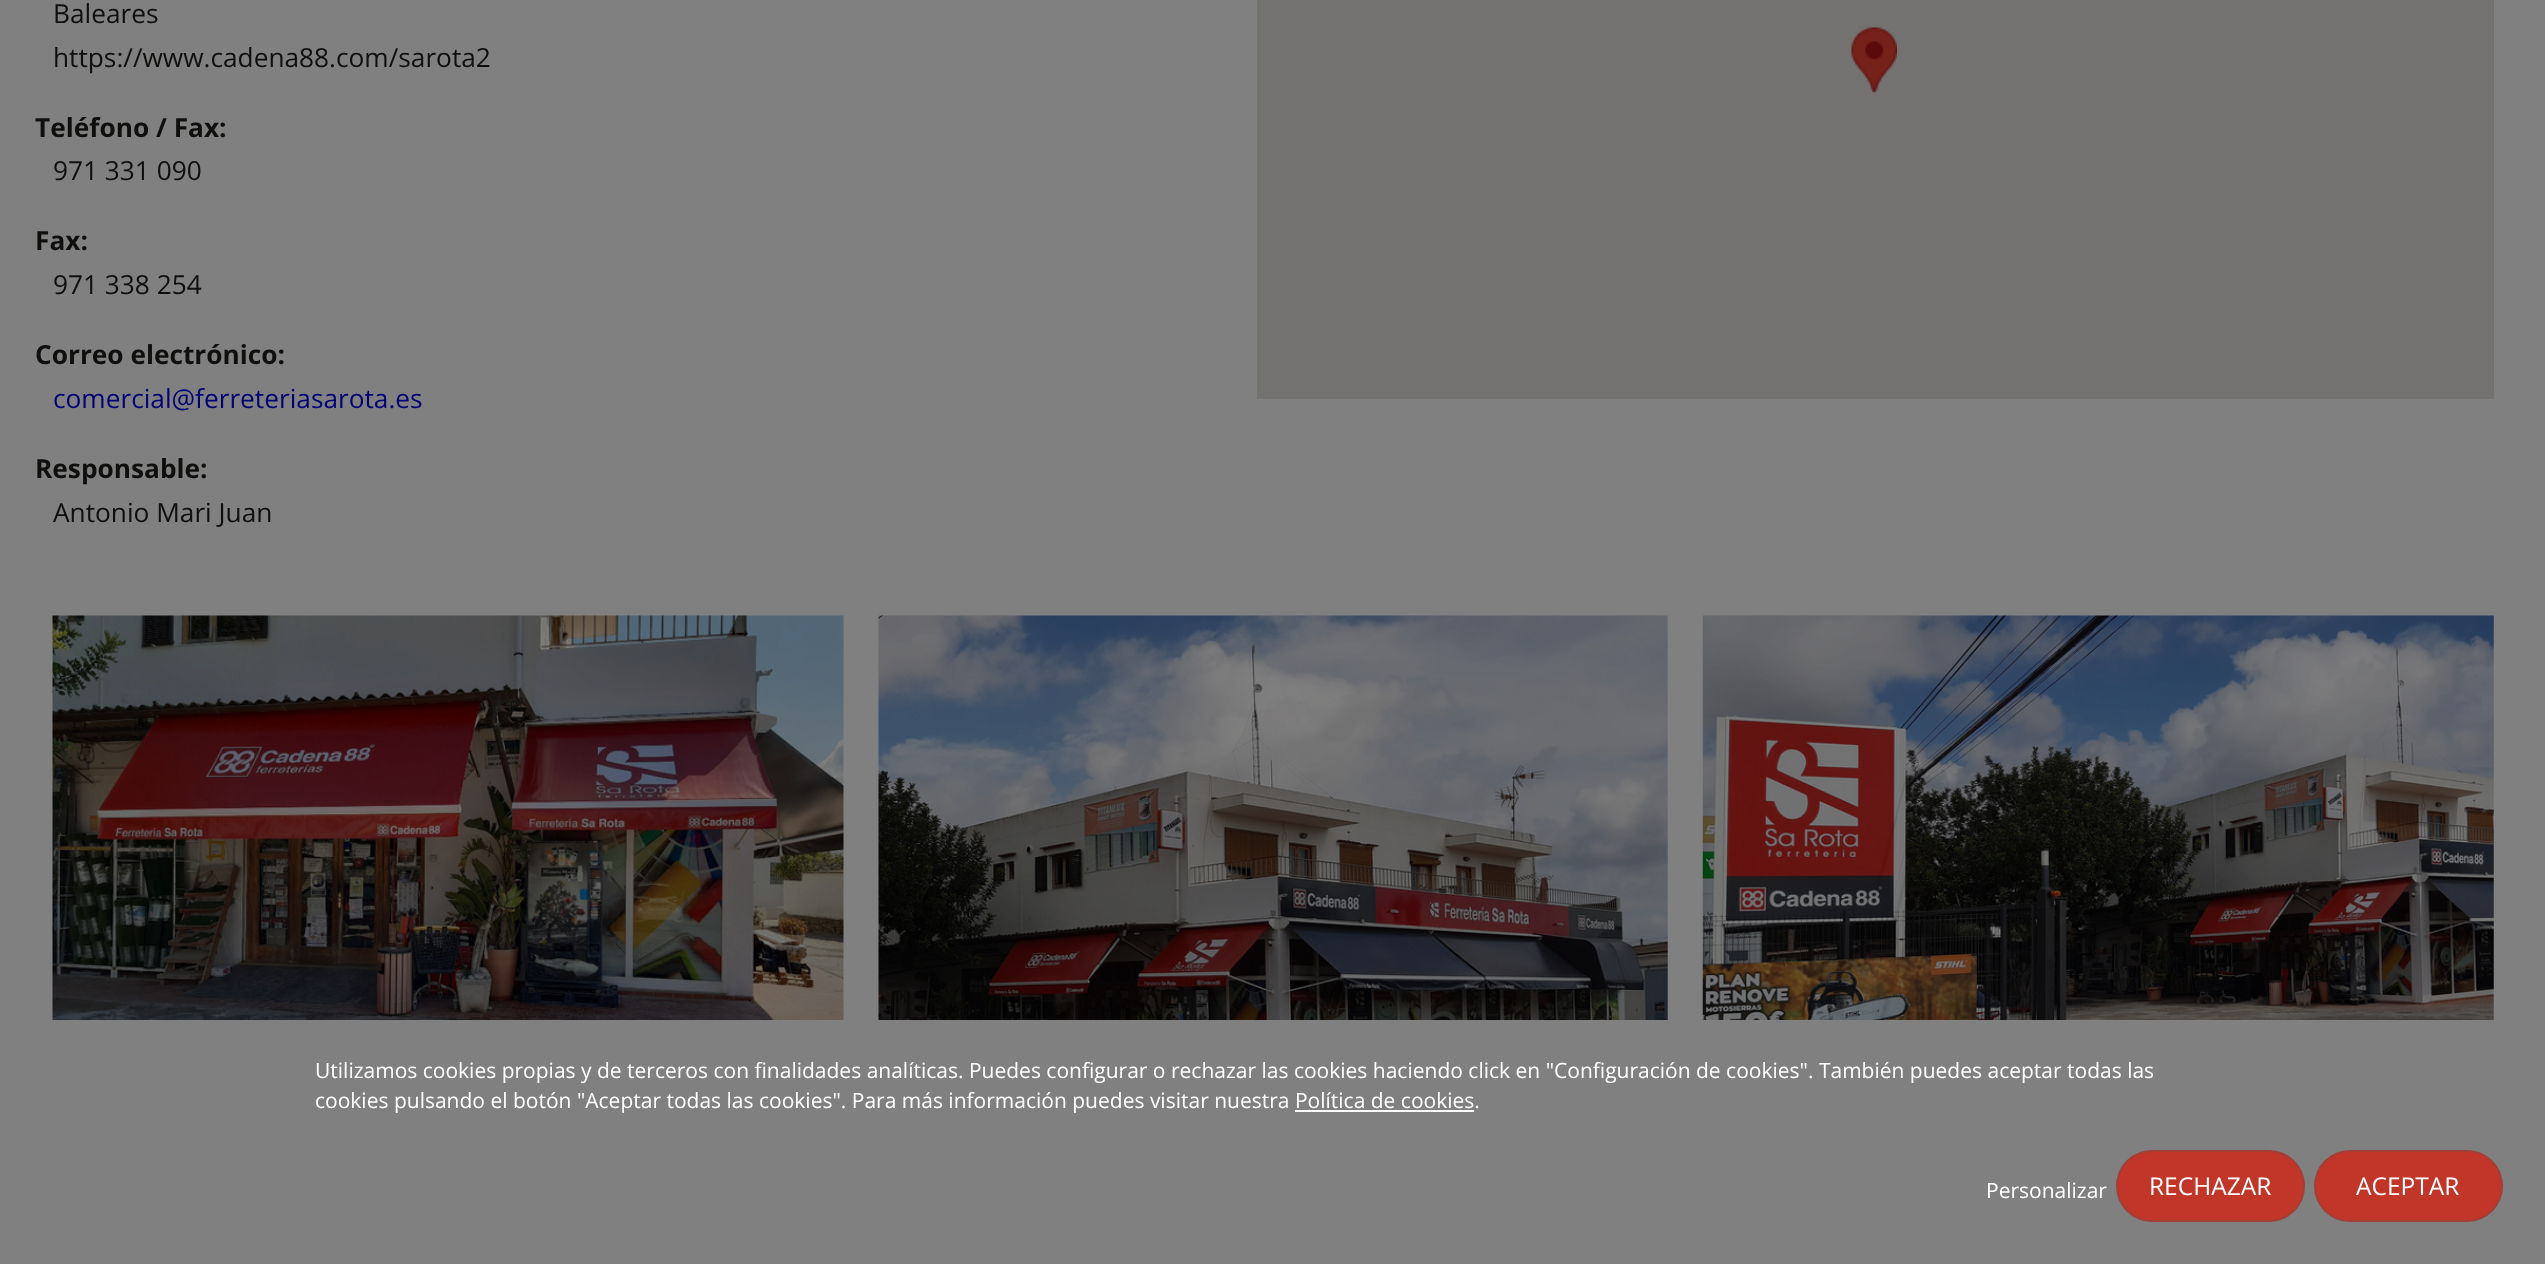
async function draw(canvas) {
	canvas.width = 2545;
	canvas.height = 1264;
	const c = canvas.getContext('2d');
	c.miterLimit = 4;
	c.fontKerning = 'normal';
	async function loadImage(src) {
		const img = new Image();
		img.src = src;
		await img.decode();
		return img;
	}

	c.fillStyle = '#808080';
	c.fillRect(0, 0, 2545, 1264);
	c.font = '26.25px Open Sans';
	c.fillStyle = '#0f0f0e';
	c.fillText('Baleares', 53, 23);
	c.fillStyle = '#737270';
	c.fillRect(1257, 0, 1237, 399);
	c.drawImage(await loadImage('img1.png'), 1851, 27, 46, 66);
	c.fillStyle = '#0f0f0e';
	c.fillText('https://www.cadena88.com/sarota2', 53, 67);
	c.font = 'bold 26.25px Open Sans';
	c.fillText('Teléfono / Fax:', 35, 137);
	c.font = '26.25px Open Sans';
	c.fillText('971 331 090', 53, 180);
	c.font = 'bold 26.25px Open Sans';
	c.fillText('Fax:', 35, 250);
	c.font = '26.25px Open Sans';
	c.fillText('971 338 254', 53, 294);
	c.font = 'bold 26.25px Open Sans';
	c.fillText('Correo electrónico:', 35, 364);
	c.font = '26.25px Open Sans';
	c.fillStyle = '#007';
	c.fillText('comercial@ferreteriasarota.es', 53, 408);
	c.font = 'bold 26.25px Open Sans';
	c.fillStyle = '#0f0f0e';
	c.fillText('Responsable:', 35, 478);
	c.font = '26.25px Open Sans';
	c.fillText('Antonio Mari Juan', 53, 522);
	c.drawImage(await loadImage('img2.png'), 52, 615, 792, 405);
	c.drawImage(await loadImage('img3.png'), 878, 615, 790, 405);
	c.drawImage(await loadImage('img4.png'), 1702, 615, 792, 405);
	c.font = '21px Open Sans';
	c.fillStyle = '#fff';
	c.fillText('Utilizamos cookies propias y de terceros con finalidades analíticas. Puedes configurar o rechazar las cookies haciendo click en "Configuración de cookies". También puedes aceptar todas las', 315, 1078);
	c.fillText('cookies pulsando el botón "Aceptar todas las cookies". Para más información puedes visitar nuestra Política de cookies.', 315, 1108);
	c.fillRect(1295, 1110, 179, 2);
	c.fillText('Personalizar', 1986, 1198);
	c.fillStyle = '#c23529';
	c.beginPath();
	c.roundRect(2116, 1150, 189, 72, 36);
	c.fill();
	c.beginPath();
	c.roundRect(2117, 1151, 187, 70, 35);
	c.strokeStyle = '#5656564d';
	c.lineWidth = 2;
	c.stroke();
	c.font = '24.5px Open Sans';
	c.fillStyle = '#fff';
	c.fillText('RECHAZAR', 2149, 1195);
	c.fillStyle = '#c23529';
	c.beginPath();
	c.roundRect(2314, 1150, 189, 72, 36);
	c.fill();
	c.beginPath();
	c.roundRect(2315, 1151, 187, 70, 35);
	c.stroke();
	c.fillStyle = '#fff';
	c.fillText('ACEPTAR', 2356, 1195);
}

draw(document.querySelector('canvas'));
